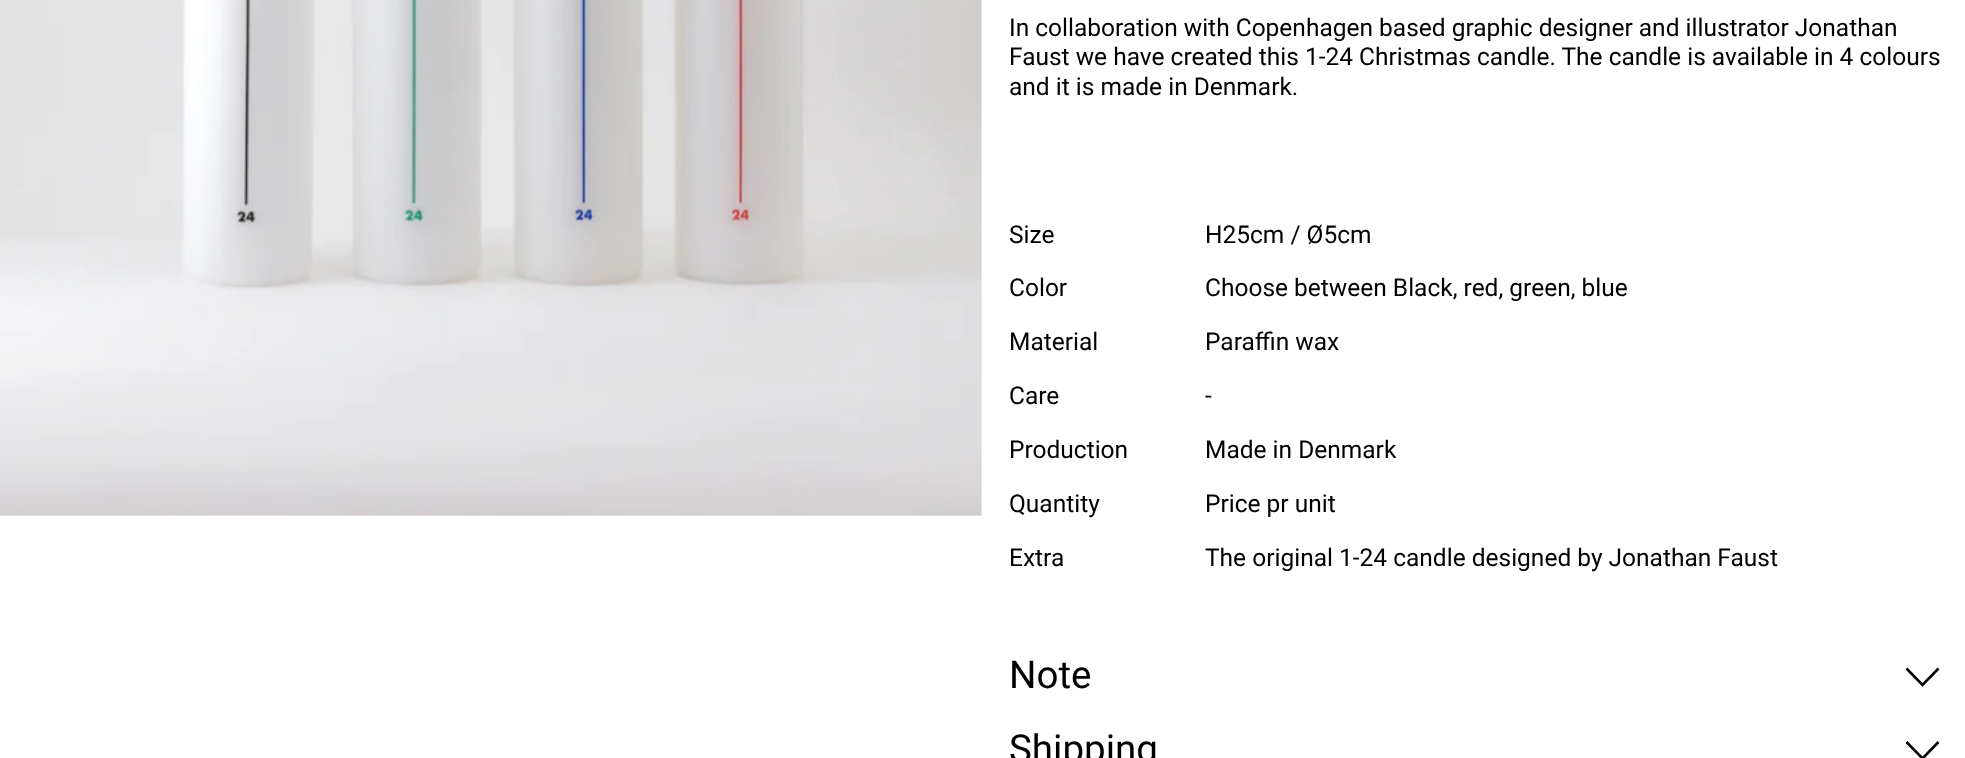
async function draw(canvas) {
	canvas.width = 1965;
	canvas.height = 758;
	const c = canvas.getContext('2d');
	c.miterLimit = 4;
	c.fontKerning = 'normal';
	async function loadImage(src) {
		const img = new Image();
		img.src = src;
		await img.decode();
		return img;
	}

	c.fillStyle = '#fff';
	c.fillRect(0, 0, 1965, 758);
	c.drawImage(await loadImage('img1.png'), 0, 0, 982, 516);
	c.font = '24.5px Roboto';
	c.fillStyle = '#000';
	for (const [text, x, y] of [
		['In collaboration with Copenhagen based graphic designer and illustrator Jonathan', 1009, 36],
		['Faust we have created this 1-24 Christmas candle. The candle is available in 4 colours', 1009, 65],
		['and it is made in Denmark.', 1009, 95],
		['Size', 1009, 243],
		['H25cm / Ø5cm', 1205, 243],
		['Color', 1009, 296],
		['Choose between Black, red, green, blue', 1205, 296],
		['Material', 1009, 350],
		['Paraffin wax', 1205, 350],
		['Care', 1009, 404],
		['-', 1205, 404],
		['Production', 1009, 458],
		['Made in Denmark', 1205, 458],
		['Quantity', 1009, 512],
		['Price pr unit', 1205, 512],
		['Extra', 1009, 566],
		['The original 1-24 candle designed by Jonathan Faust', 1205, 566],
	]) {
		c.fillText(text, x, y);
	}
	c.font = '38.5px Roboto';
	c.fillText('Note', 1009, 688);
	c.beginPath();
	c.moveTo(1906.5, 668.5);
	c.lineTo(1922.5, 685);
	c.lineTo(1938.5, 668.5);
	c.strokeStyle = '#000';
	c.lineWidth = 2.6;
	c.stroke();
	c.fillText('Shipping', 1009, 762);
	c.beginPath();
	c.moveTo(1906.5, 742);
	c.lineTo(1922.5, 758.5);
	c.lineTo(1938.5, 742);
	c.stroke();
}

draw(document.querySelector('canvas'));
